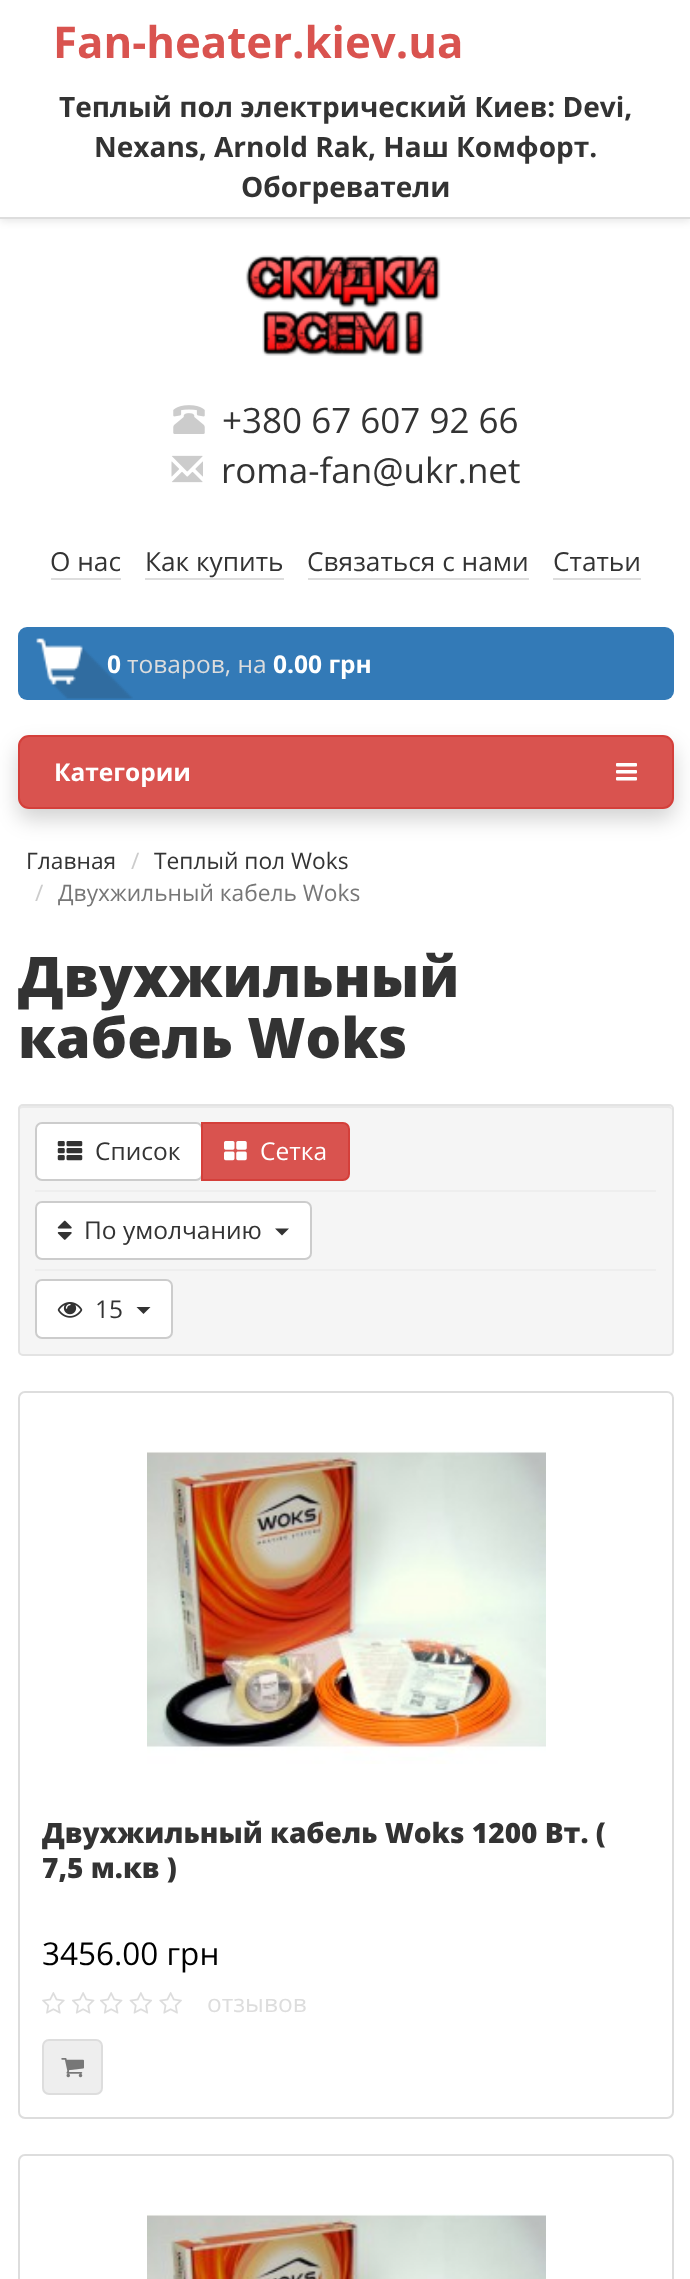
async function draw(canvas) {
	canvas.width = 690;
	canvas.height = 2279;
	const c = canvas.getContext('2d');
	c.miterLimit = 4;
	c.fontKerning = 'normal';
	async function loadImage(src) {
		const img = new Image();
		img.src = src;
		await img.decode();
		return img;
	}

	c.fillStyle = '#fff';
	c.fillRect(0, 0, 690, 2279);
	c.fillStyle = '#0000001a';
	c.filter = 'blur(4.5px)';
	c.beginPath();
	c.rect(0, 2, 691, 219);
	c.fill();
	c.filter = 'none';
	c.fillStyle = '#fff';
	c.fillRect(0, 0, 690, 217);
	c.fillStyle = '#ddd';
	c.fillRect(0, 217, 690, 2);
	c.font = 'bold 43.75px Open Sans';
	c.fillStyle = '#d9534f';
	c.fillText('Fan-heater.kiev.ua', 53, 58);
	c.font = 'bold 28px Open Sans';
	c.fillStyle = '#333';
	for (const [text, x, y] of [
		['Теплый пол электрический Киев: Devi,', 59, 117],
		['Nexans, Arnold Rak, Наш Комфорт.', 94, 157],
		['Обогреватели', 241, 197],
	]) {
		c.fillText(text, x, y);
	}
	c.drawImage(await loadImage('img1.png'), 245, 255, 196, 101);
	c.drawImage(await loadImage('img2.png'), 173, 405, 32, 29);
	c.font = '35px Open Sans';
	c.fillText('+380 67 607 92 66', 222, 433);
	c.drawImage(await loadImage('img3.png'), 171, 455, 32, 28);
	c.fillText('roma-fan@ukr.net', 221, 483);
	c.font = '26.25px Open Sans';
	c.fillText('О нас', 50, 571);
	c.fillStyle = '#ddd';
	c.fillRect(51, 578, 70, 2);
	c.fillStyle = '#333';
	c.fillText('Как купить', 145, 571);
	c.fillStyle = '#ddd';
	c.fillRect(145, 578, 139, 2);
	c.fillStyle = '#333';
	c.fillText('Связаться с нами', 307, 571);
	c.fillStyle = '#ddd';
	c.fillRect(308, 578, 221, 2);
	c.fillStyle = '#333';
	c.fillText('Статьи', 553, 571);
	c.fillStyle = '#ddd';
	c.fillRect(553, 578, 88, 2);
	c.fillStyle = '#337ab7';
	c.beginPath();
	c.roundRect(18, 627, 656, 73, 9);
	c.fill();
	c.drawImage(await loadImage('img4.png'), 36, 638, 97, 61);
	c.font = 'bold 24.5px Open Sans';
	c.fillStyle = '#fff';
	c.fillText('0', 107, 673);
	c.font = '24.5px Open Sans';
	c.fillStyle = '#ddd';
	c.fillText('товаров, на', 127, 673);
	c.font = 'bold 24.5px Open Sans';
	c.fillStyle = '#fff';
	c.fillText('0.00 грн', 273, 673);
	c.fillStyle = '#0000002e';
	c.filter = 'blur(10.5px)';
	c.beginPath();
	c.roundRect(18, 746, 656, 73, 11);
	c.fill();
	c.filter = 'none';
	c.fillStyle = '#d9534f';
	c.beginPath();
	c.roundRect(19, 736, 654, 72, 10);
	c.fill();
	c.strokeStyle = '#d43f3a';
	c.lineWidth = 2;
	c.stroke();
	c.fillStyle = '#fff';
	c.fillText('Категории', 54, 781);
	c.drawImage(await loadImage('img5.png'), 616, 763, 21, 18);
	c.font = '22.75px Open Sans';
	c.fillStyle = '#333';
	c.fillText('Главная', 26, 869);
	c.fillStyle = '#ccc';
	c.fillText('/', 131, 869);
	c.fillStyle = '#333';
	c.fillText('Теплый пол Woks', 154, 869);
	c.fillStyle = '#ccc';
	c.fillText('/', 35, 901);
	c.fillStyle = '#777';
	c.fillText('Двухжильный кабель Woks', 58, 901);
	c.font = '800 56px Open Sans';
	c.fillStyle = '#333';
	c.fillText('Двухжильный', 18, 997);
	c.fillText('кабель Woks', 18, 1058);
	c.fillStyle = '#f5f5f5';
	c.beginPath();
	c.roundRect(18, 1104, 656, 252, 5);
	c.fill();
	c.fillStyle = '#e9e9e9';
	c.beginPath();
	c.moveTo(23, 1108);
	c.lineTo(668, 1108);
	c.bezierCurveTo(670, 1108, 672, 1109, 672, 1111);
	c.bezierCurveTo(672, 1108, 671, 1106, 668, 1106);
	c.lineTo(23, 1106);
	c.lineTo(20, 1107);
	c.lineTo(19, 1108);
	c.lineTo(19, 1111);
	c.bezierCurveTo(19, 1109, 21, 1108, 23, 1108);
	c.closePath();
	c.fill();
	c.beginPath();
	c.roundRect(19, 1105, 654, 250, 4);
	c.strokeStyle = '#e3e3e3';
	c.stroke();
	c.fillStyle = '#fff';
	c.beginPath();
	c.roundRect(36, 1123, 166, 57, 6);
	c.fill();
	c.strokeStyle = '#ccc';
	c.stroke();
	c.drawImage(await loadImage('img6.png'), 57, 1141, 26, 20);
	c.font = '24.5px Open Sans';
	c.fillStyle = '#333';
	c.fillText('Список', 95, 1160);
	c.fillStyle = '#d9534f';
	c.beginPath();
	c.roundRect(202, 1123, 147, 57, [0, 6, 6, 0]);
	c.fill();
	c.strokeStyle = '#d43f3a';
	c.stroke();
	c.drawImage(await loadImage('img7.png'), 224, 1141, 23, 20);
	c.fillStyle = '#fff';
	c.fillText('Сетка', 260, 1160);
	c.fillStyle = '#eee';
	c.fillRect(35, 1190, 621, 2);
	c.fillStyle = '#fff';
	c.beginPath();
	c.roundRect(36, 1202, 275, 57, 6);
	c.fill();
	c.strokeStyle = '#ccc';
	c.stroke();
	c.drawImage(await loadImage('img8.png'), 57, 1220, 15, 20);
	c.fillStyle = '#333';
	c.fillText('По умолчанию', 84, 1239);
	c.beginPath();
	c.moveTo(275, 1228.5);
	c.lineTo(289, 1228.5);
	c.lineTo(282, 1235.5);
	c.closePath();
	c.fill();
	c.fillStyle = '#eee';
	c.fillRect(35, 1269, 621, 2);
	c.fillStyle = '#fff';
	c.beginPath();
	c.roundRect(36, 1280, 136, 58, 6);
	c.fill();
	c.stroke();
	c.drawImage(await loadImage('img9.png'), 57, 1302, 26, 16);
	c.fillStyle = '#333';
	c.fillText('15', 95, 1318);
	c.beginPath();
	c.moveTo(136.5, 1307);
	c.lineTo(150.5, 1307);
	c.lineTo(143.5, 1314);
	c.closePath();
	c.fill();
	c.beginPath();
	c.roundRect(19, 1392, 654, 726, 6);
	c.strokeStyle = '#ddd';
	c.stroke();
	c.drawImage(await loadImage('img10.png'), 147, 1451, 399, 313);
	c.font = '800 28px Open Sans';
	c.fillText('Двухжильный кабель Woks 1200 Вт. (', 42, 1843);
	c.fillText('7,5 м.кв )', 42, 1878);
	c.font = '31.5px Open Sans';
	c.fillStyle = '#000';
	c.fillText('3456.00 грн', 42, 1965);
	c.drawImage(await loadImage('img11.png'), 42, 1992, 23, 22);
	c.drawImage(await loadImage('img12.png'), 72, 1992, 23, 22);
	c.drawImage(await loadImage('img12.png'), 100, 1992, 23, 22);
	c.drawImage(await loadImage('img13.png'), 129, 1992, 23, 22);
	c.drawImage(await loadImage('img14.png'), 159, 1992, 23, 22);
	c.font = '24.5px Open Sans';
	c.fillStyle = '#ddd';
	c.fillText('отзывов', 207, 2012);
	c.fillStyle = '#eee';
	c.beginPath();
	c.roundRect(43, 2040, 59, 54, 6);
	c.fill();
	c.stroke();
	c.drawImage(await loadImage('img15.png'), 61, 2058, 23, 20);
	c.beginPath();
	c.roundRect(19, 2155, 654, 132, 6);
	c.stroke();
	c.drawImage(await loadImage('img16.png'), 147, 2214, 399, 65);
}

draw(document.querySelector('canvas'));
